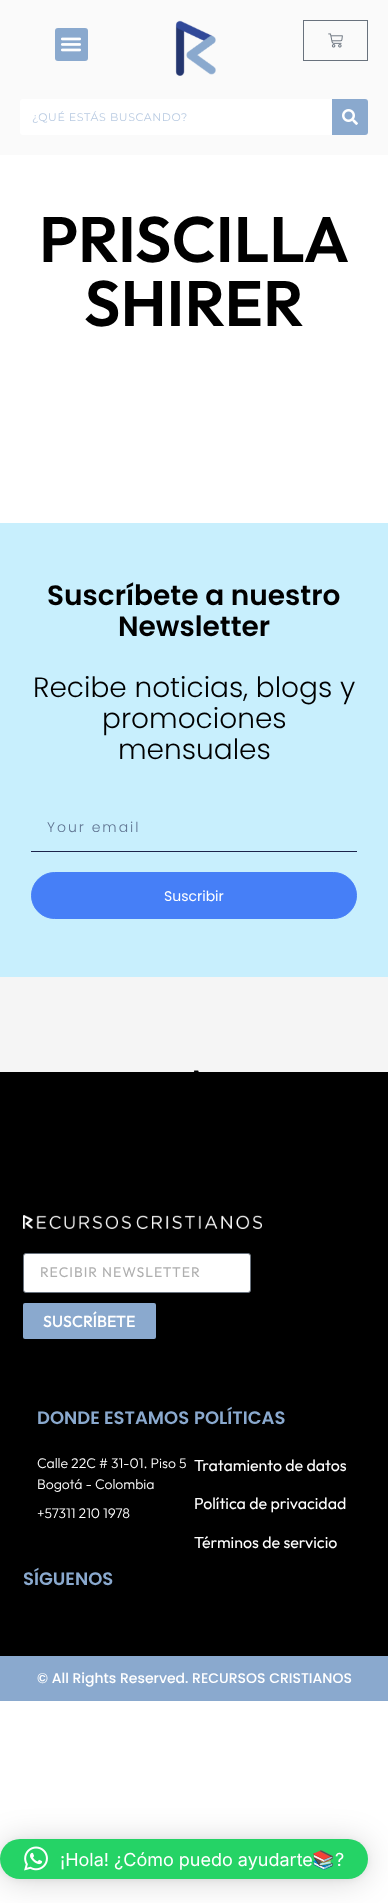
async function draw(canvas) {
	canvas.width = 388;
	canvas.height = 1903;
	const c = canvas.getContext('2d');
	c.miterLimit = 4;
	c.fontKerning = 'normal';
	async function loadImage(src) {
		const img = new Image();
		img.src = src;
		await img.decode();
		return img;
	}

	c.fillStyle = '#fff';
	c.fillRect(0, 0, 388, 1903);
	c.fillStyle = '#fafafa';
	c.fillRect(0, 0, 388, 155);
	c.fillStyle = '#8aa9ce';
	c.beginPath();
	c.roundRect(55, 28, 33, 33, 3);
	c.fill();
	c.drawImage(await loadImage('img1.png'), 61, 37, 20, 15);
	c.drawImage(await loadImage('img2.png'), 175, 20, 41, 56);
	c.strokeStyle = '#69727d';
	c.strokeRect(303.5, 20.5, 64, 40);
	c.drawImage(await loadImage('img3.png'), 328, 33, 15, 15);
	c.fillStyle = '#fff';
	c.beginPath();
	c.roundRect(20, 99, 348, 36, 3);
	c.fill();
	c.letterSpacing = '0.6px';
	c.font = '11px Montserrat';
	c.fillStyle = '#b9cbe2';
	c.fillText('¿QUÉ ESTÁS BUSCANDO?', 32, 121);
	c.fillStyle = '#8aa9ce';
	c.beginPath();
	c.roundRect(332, 99, 36, 36, [0, 3, 3, 0]);
	c.fill();
	c.drawImage(await loadImage('img4.png'), 342, 109, 16, 16);
	c.letterSpacing = '0px';
	c.font = '600 64px Outfit';
	c.fillStyle = '#000';
	c.fillText('PRISCILLA', 39, 262);
	c.fillText('SHIRER', 84, 326);
	c.fillStyle = '#c8effd';
	c.fillRect(0, 523, 388, 454);
	c.font = '600 28px Poppins';
	c.fillStyle = '#000';
	c.fillText('Suscríbete a nuestro', 47, 605);
	c.fillText('Newsletter', 118, 636);
	c.font = '300 28px Poppins';
	for (const [text, x, y] of [
		['Recibe noticias, blogs y', 33, 697],
		['promociones', 102, 728],
		['mensuales', 118, 759],
	]) {
		c.fillText(text, x, y);
	}
	c.fillStyle = '#1c244b';
	c.fillRect(31, 851, 326, 1);
	c.letterSpacing = '2px';
	c.font = '300 14px Poppins';
	c.fillStyle = '#617592';
	c.fillText('Your email', 47, 832);
	c.fillStyle = '#467ff7';
	c.beginPath();
	c.roundRect(31.5, 872.5, 325, 46, 23);
	c.fill();
	c.strokeStyle = '#467ff7';
	c.stroke();
	c.letterSpacing = '0px';
	c.font = '14px Poppins';
	c.fillStyle = '#fff';
	c.fillText('Suscribir', 164, 901);
	c.fillStyle = '#f5f5f5';
	c.fillRect(0, 977, 388, 95);
	c.drawImage(await loadImage('img5.png'), 193, 1070, 6, 2);
	c.fillStyle = '#000';
	c.fillRect(0, 1072, 388, 584);
	c.drawImage(await loadImage('img6.png'), 23, 1215, 239, 14);
	c.fillStyle = '#fff';
	c.beginPath();
	c.roundRect(23.5, 1253.5, 227, 39, 2.5);
	c.fill();
	c.strokeStyle = '#69727d';
	c.stroke();
	c.letterSpacing = '1px';
	c.font = '14px Outfit';
	c.fillStyle = '#afafaf';
	c.fillText('RECIBIR NEWSLETTER', 40, 1277);
	c.fillStyle = '#8aa9ce';
	c.beginPath();
	c.roundRect(23, 1303, 133, 36, 2);
	c.fill();
	c.letterSpacing = '0px';
	c.font = '500 16px Outfit';
	c.fillStyle = '#fff';
	c.fillText('SUSCRÍBETE', 43, 1327);
	c.font = '600 18px Poppins';
	c.fillStyle = '#8aa9ce';
	c.fillText('DONDE ESTAMOS', 37, 1424);
	c.font = '300 14px Outfit';
	c.fillStyle = '#fff';
	for (const [text, x, y] of [
		['Calle 22C # 31-01. Piso 5', 37, 1468],
		['Bogotá - Colombia', 37, 1489],
		['+57311 210 1978', 37, 1518],
	]) {
		c.fillText(text, x, y);
	}
	c.font = '600 18px Poppins';
	c.fillStyle = '#8aa9ce';
	c.fillText('POLÍTICAS', 194, 1424);
	c.font = '16px Outfit';
	c.fillStyle = '#fff';
	for (const [text, x, y] of [
		['Tratamiento de datos', 194, 1471],
		['Política de privacidad', 194, 1509],
		['Términos de servicio', 194, 1548],
	]) {
		c.fillText(text, x, y);
	}
	c.font = '600 18px Poppins';
	c.fillStyle = '#8aa9ce';
	c.fillText('SÍGUENOS', 23, 1585);
	c.fillRect(0, 1656, 388, 45);
	c.font = '500 14px Poppins';
	c.fillStyle = '#fff';
	c.fillText('© All Rights Reserved. RECURSOS CRISTIANOS', 37, 1683);
	c.fillStyle = '#00000029';
	c.filter = 'blur(16px)';
	c.beginPath();
	c.roundRect(0, 1841, 368, 40, 20);
	c.fill();
	c.filter = 'none';
	c.fillStyle = '#0000000f';
	c.filter = 'blur(3px)';
	c.beginPath();
	c.roundRect(0, 1840, 368, 40, 20);
	c.fill();
	c.filter = 'none';
	c.fillStyle = '#25d366';
	c.beginPath();
	c.roundRect(0, 1839, 368, 40, 20);
	c.fill();
	c.drawImage(await loadImage('img7.png'), 24, 1846, 24, 25);
	c.font = '18px Inter';
	c.fillStyle = '#fff';
	c.fillText('¡Hola! ¿Cómo puedo ayudarte', 60, 1866);
	c.font = '18px Noto Color Emoji';
	c.fillText('📚', 312, 1866);
	c.font = '18px Inter';
	c.fillText('?', 335, 1866);
}

draw(document.querySelector('canvas'));
